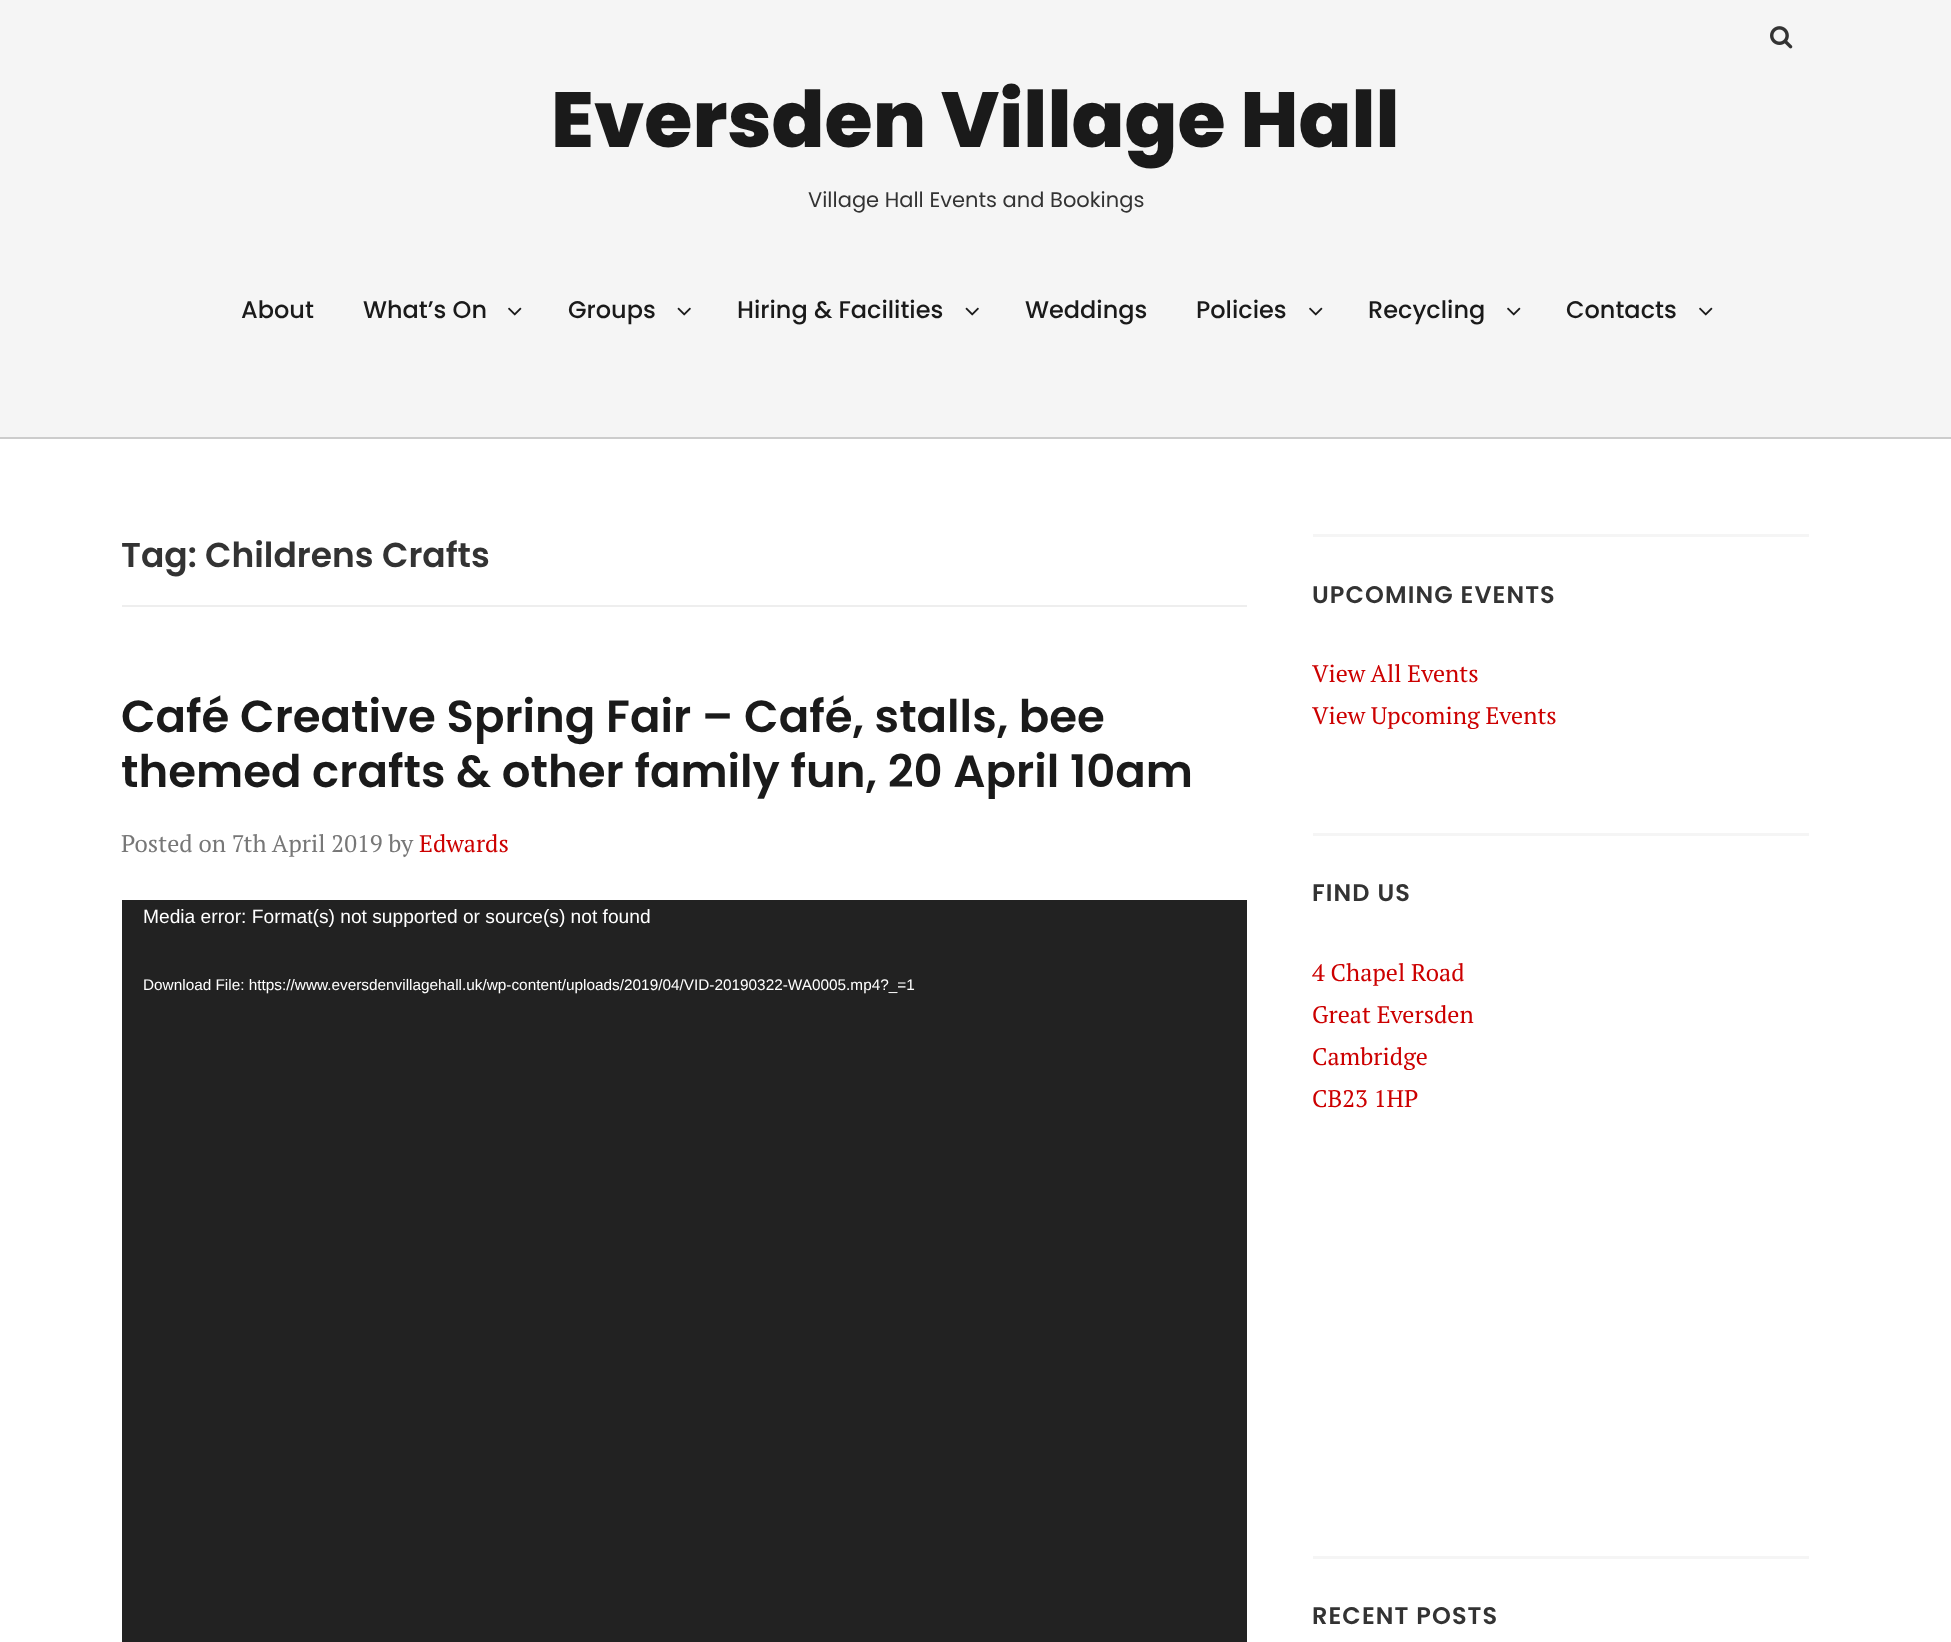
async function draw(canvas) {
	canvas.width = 1951;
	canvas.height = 1642;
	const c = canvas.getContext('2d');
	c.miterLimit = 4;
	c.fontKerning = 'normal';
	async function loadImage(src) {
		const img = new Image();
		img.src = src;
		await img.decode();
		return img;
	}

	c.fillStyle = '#fff';
	c.fillRect(0, 0, 1951, 1642);
	c.fillStyle = '#f5f5f5';
	c.fillRect(0, 0, 1951, 437);
	c.fillStyle = '#ccc';
	c.fillRect(0, 437, 1951, 2);
	c.drawImage(await loadImage('img1.png'), 1770, 26, 23, 23);
	c.font = '800 78px Poppins';
	c.fillStyle = '#1a1a1a';
	c.fillText('Eversden Village Hall', 551, 147);
	c.font = '21px Poppins';
	c.fillStyle = '#333';
	c.fillText('Village Hall Events and Bookings', 808, 207);
	c.font = '500 24px Poppins';
	c.fillStyle = '#1a1a1a';
	c.fillText('About', 241, 318);
	c.fillText('What’s On', 363, 318);
	c.drawImage(await loadImage('img2.png'), 508, 307, 14, 9);
	c.fillText('Groups', 568, 318);
	c.drawImage(await loadImage('img3.png'), 677, 307, 14, 9);
	c.fillText('Hiring & Facilities', 737, 318);
	c.drawImage(await loadImage('img3.png'), 965, 307, 14, 9);
	c.fillText('Weddings', 1025, 318);
	c.fillText('Policies', 1196, 318);
	c.drawImage(await loadImage('img2.png'), 1309, 307, 14, 9);
	c.fillText('Recycling', 1368, 318);
	c.drawImage(await loadImage('img2.png'), 1507, 307, 14, 9);
	c.fillText('Contacts', 1566, 318);
	c.drawImage(await loadImage('img2.png'), 1699, 307, 14, 9);
	c.fillStyle = '#eee';
	c.fillRect(122, 605, 1125, 2);
	c.font = '600 34.5px Poppins';
	c.fillStyle = '#333';
	c.fillText('Tag: Childrens Crafts', 121, 567);
	c.font = '600 45px Poppins';
	c.fillStyle = '#1a1a1a';
	c.fillText('Café Creative Spring Fair – Café, stalls, bee', 121, 732);
	c.fillText('themed crafts & other family fun, 20 April 10am', 121, 787);
	c.font = '24px PT Serif';
	c.fillStyle = '#777';
	c.fillText('Posted on 7th April 2019 by', 121, 852);
	c.fillStyle = '#c00';
	c.fillText('Edwards', 419, 852);
	c.fillStyle = '#222';
	c.fillRect(122, 900, 1125, 742);
	c.font = '19.2px Liberation Sans';
	c.fillStyle = '#fff';
	c.fillText('Media error: Format(s) not supported or source(s) not found', 143, 923);
	c.font = '15.35px Liberation Sans';
	c.fillText('Download File: https://www.eversdenvillagehall.uk/wp-content/uploads/2019/04/VID-20190322-WA0005.mp4?_=1', 143, 990);
	c.fillStyle = '#f5f5f5';
	c.fillRect(1313, 534, 496, 3);
	c.letterSpacing = '1.1px';
	c.font = '600 24px Poppins';
	c.fillStyle = '#333';
	c.fillText('UPCOMING EVENTS', 1312, 603);
	c.letterSpacing = '0px';
	c.font = '24px PT Serif';
	c.fillStyle = '#c00';
	c.fillText('View All Events', 1312, 682);
	c.fillText('View Upcoming Events', 1312, 724);
	c.fillStyle = '#f5f5f5';
	c.fillRect(1313, 833, 496, 3);
	c.letterSpacing = '1.1px';
	c.font = '600 24px Poppins';
	c.fillStyle = '#333';
	c.fillText('FIND US', 1312, 901);
	c.letterSpacing = '0px';
	c.font = '24px PT Serif';
	c.fillStyle = '#c00';
	for (const [text, x, y] of [
		['4 Chapel Road', 1312, 981],
		['Great Eversden', 1312, 1023],
		['Cambridge', 1312, 1065],
		['CB23 1HP', 1312, 1107],
	]) {
		c.fillText(text, x, y);
	}
	c.fillStyle = '#f5f5f5';
	c.fillRect(1313, 1556, 496, 3);
	c.letterSpacing = '1.1px';
	c.font = '600 24px Poppins';
	c.fillStyle = '#333';
	c.fillText('RECENT POSTS', 1312, 1624);
}

draw(document.querySelector('canvas'));
